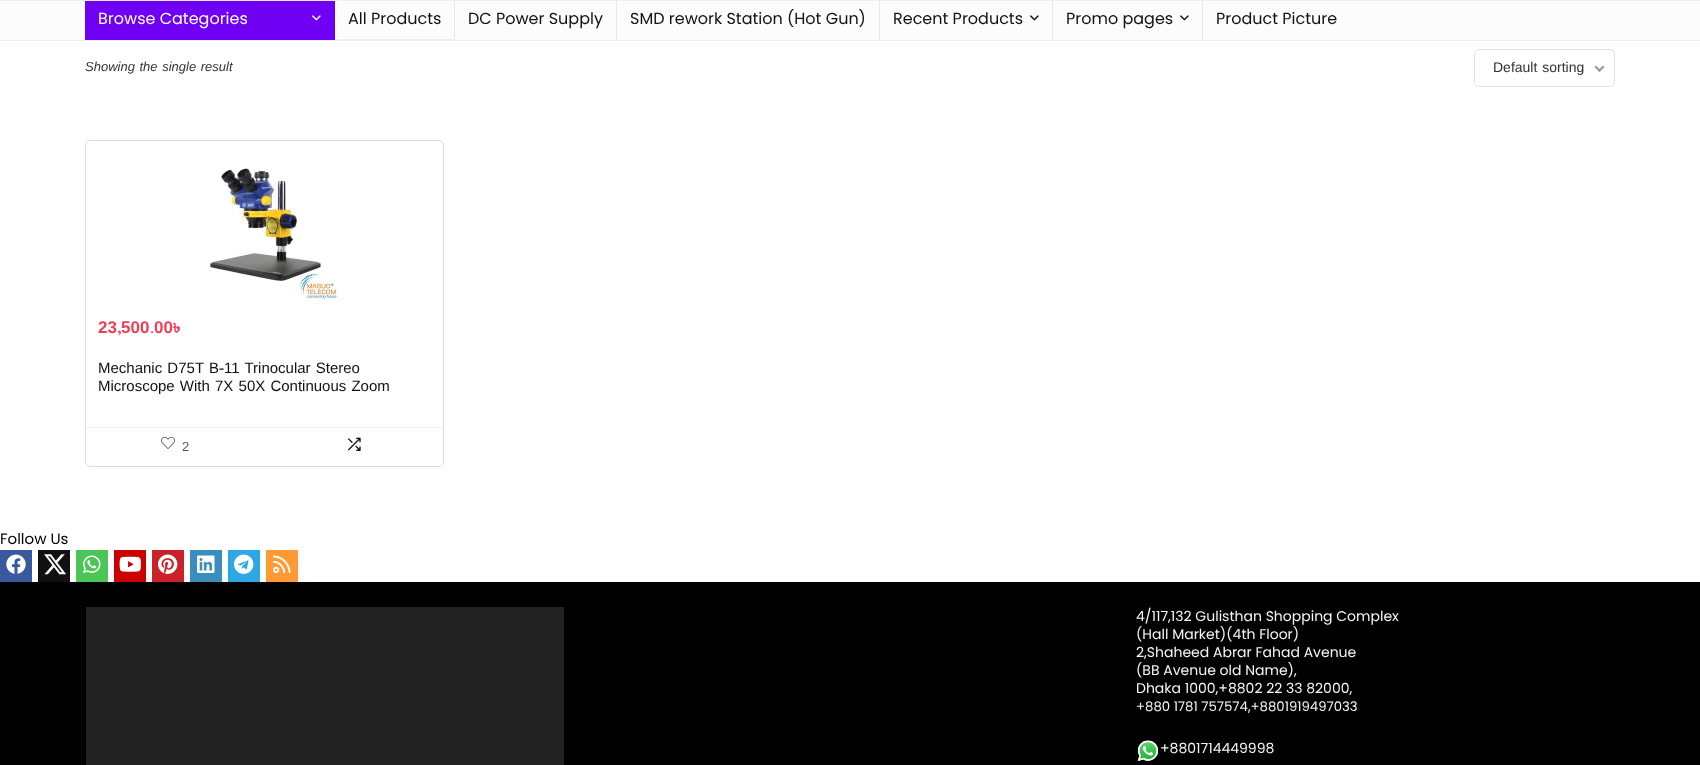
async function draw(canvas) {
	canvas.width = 1700;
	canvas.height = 765;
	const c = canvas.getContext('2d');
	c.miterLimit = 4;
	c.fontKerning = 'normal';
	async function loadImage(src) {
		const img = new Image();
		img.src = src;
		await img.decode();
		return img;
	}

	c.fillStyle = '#fff';
	c.fillRect(0, 0, 1700, 765);
	for (const [x, y, w, h, color] of [
		[0, 1, 1700, 39, '#fcfcfc'],
		[0, 0, 1700, 1, '#eee'],
		[0, 40, 1700, 1, '#eee'],
		[85, 1, 249, 39, '#7000f4'],
		[334, 1, 1, 39, '#6700e0'],
	]) {
		c.fillStyle = color;
		c.fillRect(x, y, w, h);
	}
	c.font = '16px Poppins';
	c.fillStyle = '#fff';
	c.fillText('Browse Categories', 98, 24);
	c.drawImage(await loadImage('img1.png'), 312, 15, 9, 6);
	c.fillStyle = '#e8e8e8';
	c.beginPath();
	c.moveTo(455, 1);
	c.lineTo(455, 40);
	c.lineTo(454, 39);
	c.lineTo(454, 1);
	c.closePath();
	c.fill();
	c.fillStyle = '#cecece4d';
	c.beginPath();
	c.moveTo(455, 40);
	c.lineTo(335, 40);
	c.lineTo(335, 39);
	c.lineTo(454, 39);
	c.closePath();
	c.fill();
	c.fillStyle = '#111';
	c.fillText('All Products', 348, 24);
	c.fillStyle = '#e8e8e8';
	c.fillRect(616, 1, 1, 39);
	c.fillStyle = '#111';
	c.fillText('DC Power Supply', 468, 24);
	c.fillStyle = '#e8e8e8';
	c.fillRect(879, 1, 1, 39);
	c.fillStyle = '#111';
	c.fillText('SMD rework Station (Hot Gun)', 630, 24);
	c.fillStyle = '#e8e8e8';
	c.fillRect(1052, 1, 1, 39);
	c.fillStyle = '#111';
	c.fillText('Recent Products', 893, 24);
	c.drawImage(await loadImage('img2.png'), 1030, 15, 9, 6);
	c.fillStyle = '#e8e8e8';
	c.fillRect(1202, 1, 1, 39);
	c.fillStyle = '#111';
	c.fillText('Promo pages', 1066, 24);
	c.drawImage(await loadImage('img2.png'), 1180, 15, 9, 6);
	c.fillText('Product Picture', 1216, 24);
	c.wordSpacing = '1px';
	c.font = 'italic 13px Liberation Sans';
	c.fillStyle = '#333';
	c.fillText('Showing the single result', 85, 71);
	c.beginPath();
	c.roundRect(1474.5, 49.5, 140, 37, 4.5);
	c.strokeStyle = '#e1e1e1';
	c.stroke();
	c.font = '14px Liberation Sans';
	c.fillText('Default sorting', 1493, 72);
	c.fillStyle = '#999';
	c.beginPath();
	c.moveTo(1603, 65.5);
	c.lineTo(1604.5, 67);
	c.lineTo(1599.5, 72);
	c.lineTo(1598, 70.5);
	c.closePath();
	c.fill();
	c.beginPath();
	c.moveTo(1596, 65.5);
	c.lineTo(1601, 70.5);
	c.lineTo(1599.5, 72);
	c.lineTo(1594.5, 67);
	c.closePath();
	c.fill();
	c.beginPath();
	c.roundRect(85.5, 140.5, 358, 326, 4.5);
	c.strokeStyle = '#ddd';
	c.stroke();
	c.drawImage(await loadImage('img3.png'), 210, 168, 130, 133);
	c.wordSpacing = '0px';
	c.font = 'bold 17px Liberation Sans';
	c.fillStyle = '#f04057';
	for (const [text, x, y] of [
		['23', 98, 333],
		['500', 121, 333],
		['00', 154, 333],
	]) {
		c.fillText(text, x, y);
	}
	c.font = 'bold 17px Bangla';
	for (const [text, x, y] of [
		['৳', 173, 333],
		[',', 117, 333],
		['.', 150, 333],
	]) {
		c.fillText(text, x, y);
	}
	c.wordSpacing = '1px';
	c.font = '15px Liberation Sans';
	c.fillStyle = '#111';
	c.fillText('Mechanic D75T B', 98, 373);
	c.wordSpacing = '0px';
	c.font = '500 15px Bangla';
	c.fillText('-', 219, 373);
	c.wordSpacing = '1px';
	c.font = '15px Liberation Sans';
	c.fillText('11 Trinocular Stereo', 224, 373);
	c.fillText('Microscope With 7X 50X Continuous Zoom', 98, 391);
	c.fillStyle = '#f0f0f0';
	c.fillRect(86, 427, 357, 1);
	c.drawImage(await loadImage('img4.png'), 161, 436, 14, 13);
	c.wordSpacing = '0px';
	c.font = '13px Liberation Sans';
	c.fillStyle = '#555';
	c.fillText('2', 182, 451);
	c.drawImage(await loadImage('img5.png'), 348, 437, 13, 14);
	c.font = '15px Poppins';
	c.fillStyle = '#000';
	c.fillText('Follow Us', 0, 544);
	c.fillStyle = '#39599f';
	c.fillRect(0, 550, 32, 32);
	c.drawImage(await loadImage('img6.png'), 6, 554, 20, 20);
	c.fillStyle = '#111';
	c.fillRect(38, 550, 32, 32);
	c.drawImage(await loadImage('img7.png'), 44, 554, 22, 21);
	c.fillStyle = '#4bc557';
	c.fillRect(76, 550, 32, 32);
	c.drawImage(await loadImage('img8.png'), 83, 555, 18, 18);
	c.fillStyle = '#cd0000';
	c.fillRect(114, 550, 32, 32);
	c.drawImage(await loadImage('img9.png'), 119, 556, 22, 16);
	c.fillStyle = '#ca212a';
	c.fillRect(152, 550, 32, 32);
	c.drawImage(await loadImage('img10.png'), 158, 554, 20, 20);
	c.fillStyle = '#3b8dbd';
	c.fillRect(190, 550, 32, 32);
	c.drawImage(await loadImage('img11.png'), 197, 555, 18, 18);
	c.fillStyle = '#2da8e4';
	c.fillRect(228, 550, 32, 32);
	c.drawImage(await loadImage('img12.png'), 234, 554, 20, 20);
	c.fillStyle = '#f93';
	c.fillRect(266, 550, 32, 32);
	c.drawImage(await loadImage('img13.png'), 273, 555, 18, 18);
	c.fillStyle = '#000';
	c.fillRect(0, 582, 1700, 183);
	c.fillStyle = '#222';
	c.fillRect(86, 607, 478, 158);
	c.font = '14px Poppins';
	c.fillStyle = '#f5f5f5';
	for (const [text, x, y] of [
		['4/117,132 Gulisthan Shopping Complex', 1136, 621],
		['(Hall Market)(4th Floor)', 1136, 639],
		['2,Shaheed Abrar Fahad Avenue', 1136, 657],
		['(BB Avenue old Name),', 1136, 675],
		['Dhaka 1000,+8802 22 33 82000,', 1136, 693],
	]) {
		c.fillText(text, x, y);
	}
	c.font = '13.25px Poppins';
	c.fillText('+880 1781 757574,+8801919497033', 1136, 711);
	c.drawImage(await loadImage('img14.png'), 1137, 740, 22, 21);
	c.font = '14px Poppins';
	c.fillText('+8801714449998', 1160, 753);
}

draw(document.querySelector('canvas'));
